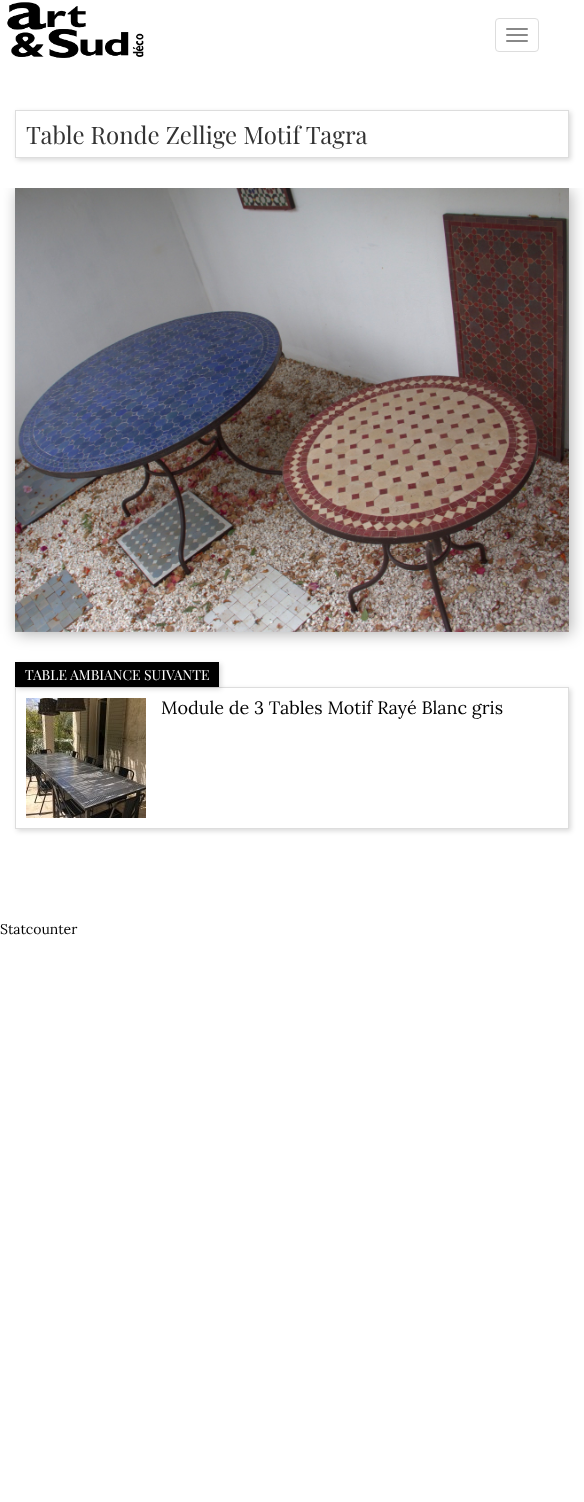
async function draw(canvas) {
	canvas.width = 584;
	canvas.height = 1502;
	const c = canvas.getContext('2d');
	c.miterLimit = 4;
	c.fontKerning = 'normal';
	async function loadImage(src) {
		const img = new Image();
		img.src = src;
		await img.decode();
		return img;
	}

	c.fillStyle = '#fff';
	c.fillRect(0, 0, 584, 1502);
	c.drawImage(await loadImage('img1.png'), 7, 2, 137, 56);
	c.beginPath();
	c.roundRect(495.5, 18.5, 43, 33, 3.5);
	c.strokeStyle = '#ddd';
	c.stroke();
	c.fillStyle = '#888';
	c.beginPath();
	c.roundRect(506, 28, 22, 2, 1);
	c.fill();
	c.beginPath();
	c.roundRect(506, 34, 22, 2, 1);
	c.fill();
	c.beginPath();
	c.roundRect(506, 40, 22, 2, 1);
	c.fill();
	c.save();
	c.beginPath();
	c.moveTo(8, 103);
	c.lineTo(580, 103);
	c.lineTo(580, 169);
	c.lineTo(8, 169);
	c.closePath();
	c.moveTo(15, 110);
	c.lineTo(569, 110);
	c.lineTo(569, 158);
	c.lineTo(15, 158);
	c.closePath();
	c.clip('evenodd');
	c.fillStyle = '#00000026';
	c.filter = 'blur(2.5px)';
	c.beginPath();
	c.rect(17, 112, 554, 48);
	c.fill();
	c.filter = 'none';
	c.restore();
	c.strokeRect(15.5, 110.5, 553, 47);
	c.font = '24px Playfair Display';
	c.fillStyle = '#333';
	c.fillText('Table Ronde Zellige Motif Tagra', 26, 144);
	c.save();
	c.beginPath();
	c.rect(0, 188, 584, 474);
	c.clip();
	c.fillStyle = '#0000004d';
	c.filter = 'blur(7.5px)';
	c.beginPath();
	c.rect(17, 190, 554, 444);
	c.fill();
	c.filter = 'none';
	c.restore();
	c.drawImage(await loadImage('img2.png'), 15, 188, 554, 444);
	c.save();
	c.beginPath();
	c.moveTo(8, 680);
	c.lineTo(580, 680);
	c.lineTo(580, 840);
	c.lineTo(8, 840);
	c.closePath();
	c.moveTo(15, 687);
	c.lineTo(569, 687);
	c.lineTo(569, 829);
	c.lineTo(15, 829);
	c.closePath();
	c.clip('evenodd');
	c.fillStyle = '#00000026';
	c.filter = 'blur(2.5px)';
	c.beginPath();
	c.rect(17, 689, 554, 142);
	c.fill();
	c.filter = 'none';
	c.restore();
	c.strokeRect(15.5, 687.5, 553, 141);
	c.fillStyle = '#00000026';
	c.filter = 'blur(2.5px)';
	c.beginPath();
	c.rect(17, 664, 204, 25);
	c.fill();
	c.filter = 'none';
	c.fillStyle = '#000';
	c.fillRect(15, 662, 204, 25);
	c.font = '14px Playfair Display';
	c.fillStyle = '#fff';
	c.fillText('TABLE AMBIANCE SUIVANTE', 25, 680);
	c.drawImage(await loadImage('img3.png'), 26, 698, 120, 120);
	c.font = '18px Lora';
	c.fillStyle = '#000';
	c.fillText('Module de 3 Tables Motif Rayé Blanc gris', 161, 714);
	c.font = '14px Lora';
	c.fillText('Statcounter', 0, 934);
}

draw(document.querySelector('canvas'));
